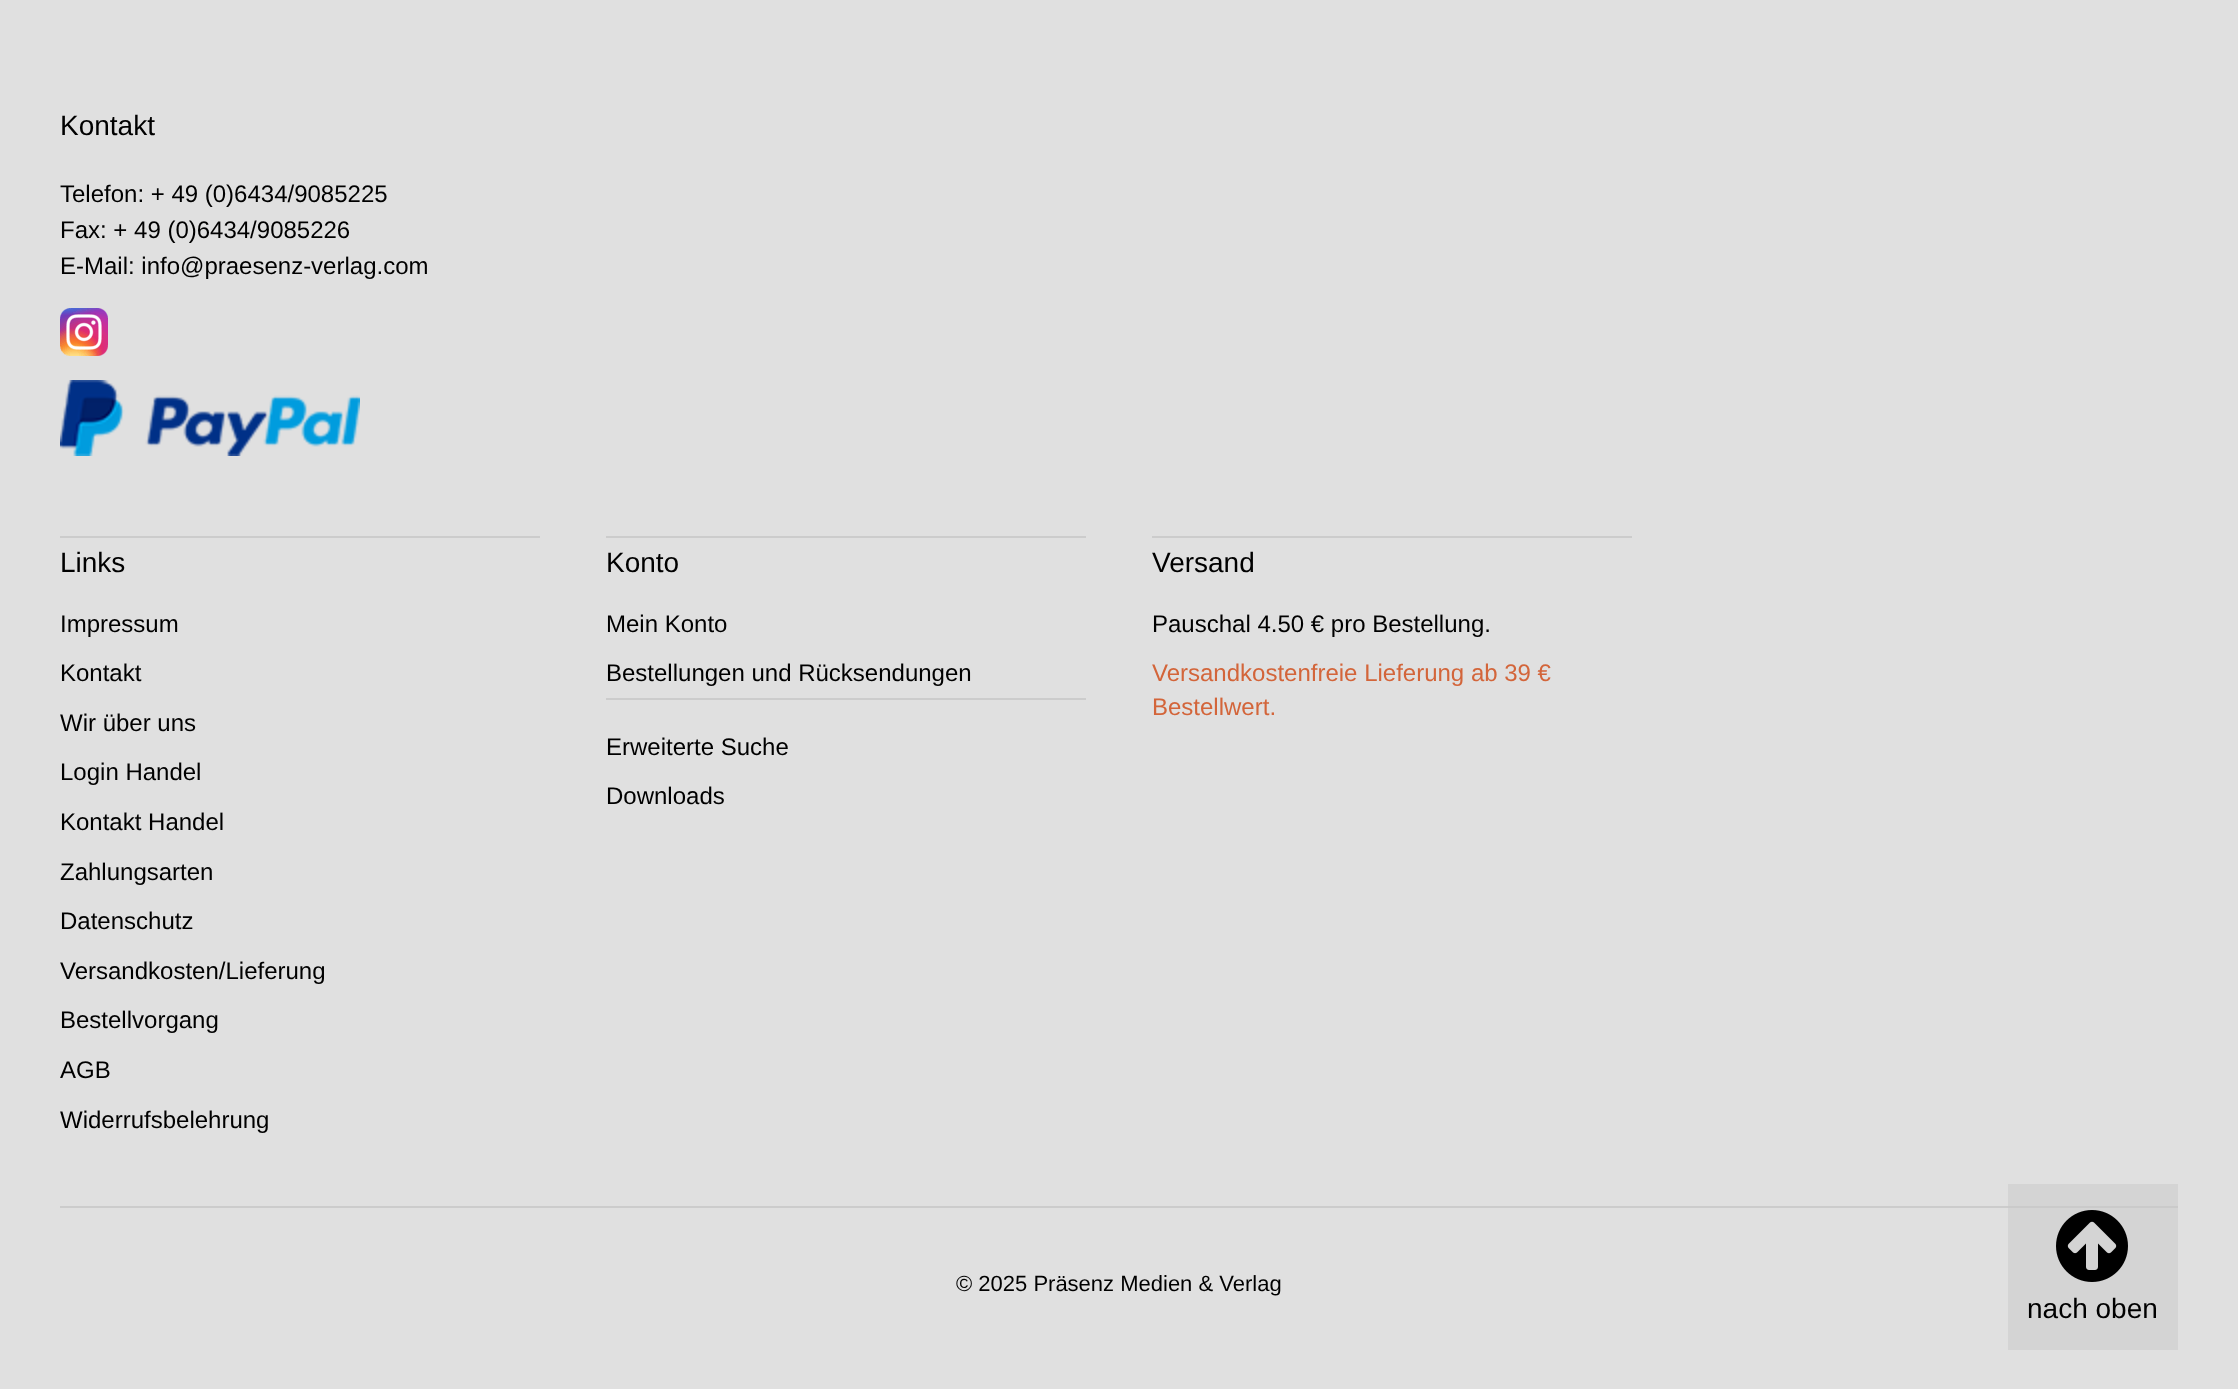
async function draw(canvas) {
	canvas.width = 2238;
	canvas.height = 1389;
	const c = canvas.getContext('2d');
	c.miterLimit = 4;
	c.fontKerning = 'normal';
	async function loadImage(src) {
		const img = new Image();
		img.src = src;
		await img.decode();
		return img;
	}

	c.fillStyle = '#e0e0e0';
	c.fillRect(0, 0, 2238, 1389);
	c.fillStyle = '#d4d4d4';
	c.fillRect(2008, 1184, 170, 166);
	c.font = '28px Liberation Sans';
	c.fillStyle = '#000';
	c.fillText('Kontakt', 60, 135);
	c.font = '24px Liberation Sans';
	for (const [text, x, y] of [
		['Telefon: + 49 (0)6434/9085225', 60, 202],
		['Fax: + 49 (0)6434/9085226', 60, 238],
		['E-Mail: info@praesenz-verlag.com', 60, 274],
	]) {
		c.fillText(text, x, y);
	}
	c.drawImage(await loadImage('img1.png'), 60, 308, 48, 48);
	c.drawImage(await loadImage('img2.png'), 60, 380, 300, 76);
	c.fillStyle = '#ccc';
	c.fillRect(60, 536, 480, 2);
	c.font = '28px Liberation Sans';
	c.fillStyle = '#000';
	c.fillText('Links', 60, 572);
	c.font = '24px Liberation Sans';
	for (const [text, x, y] of [
		['Impressum', 60, 632],
		['Kontakt', 60, 681],
		['Wir über uns', 60, 731],
		['Login Handel', 60, 780],
		['Kontakt Handel', 60, 830],
		['Zahlungsarten', 60, 880],
		['Datenschutz', 60, 929],
		['Versandkosten/Lieferung', 60, 979],
		['Bestellvorgang', 60, 1028],
		['AGB', 60, 1078],
		['Widerrufsbelehrung', 60, 1128],
	]) {
		c.fillText(text, x, y);
	}
	c.fillStyle = '#ccc';
	c.fillRect(606, 536, 480, 2);
	c.font = '28px Liberation Sans';
	c.fillStyle = '#000';
	c.fillText('Konto', 606, 572);
	c.font = '24px Liberation Sans';
	c.fillText('Mein Konto', 606, 632);
	c.fillText('Bestellungen und Rücksendungen', 606, 681);
	c.fillStyle = '#ccc';
	c.fillRect(606, 698, 480, 2);
	c.fillStyle = '#000';
	c.fillText('Erweiterte Suche', 606, 755);
	c.fillText('Downloads', 606, 804);
	c.fillStyle = '#ccc';
	c.fillRect(1152, 536, 480, 2);
	c.font = '28px Liberation Sans';
	c.fillStyle = '#000';
	c.fillText('Versand', 1152, 572);
	c.font = '24px Liberation Sans';
	c.fillText('Pauschal 4.50 € pro Bestellung.', 1152, 632);
	c.fillStyle = '#d3653a';
	c.fillText('Versandkostenfreie Lieferung ab 39 €', 1152, 681);
	c.fillText('Bestellwert.', 1152, 715);
	c.fillStyle = '#ccc';
	c.fillRect(60, 1206, 1948, 2);
	c.fillStyle = '#cacaca';
	c.fillRect(2008, 1206, 170, 2);
	c.font = '22px Liberation Sans';
	c.fillStyle = '#000';
	c.fillText('© 2025 Präsenz Medien & Verlag', 956, 1291);
	c.drawImage(await loadImage('img3.png'), 2056, 1210, 72, 72);
	c.font = '28px Liberation Sans';
	c.fillText('nach oben', 2027, 1318);
}

draw(document.querySelector('canvas'));
